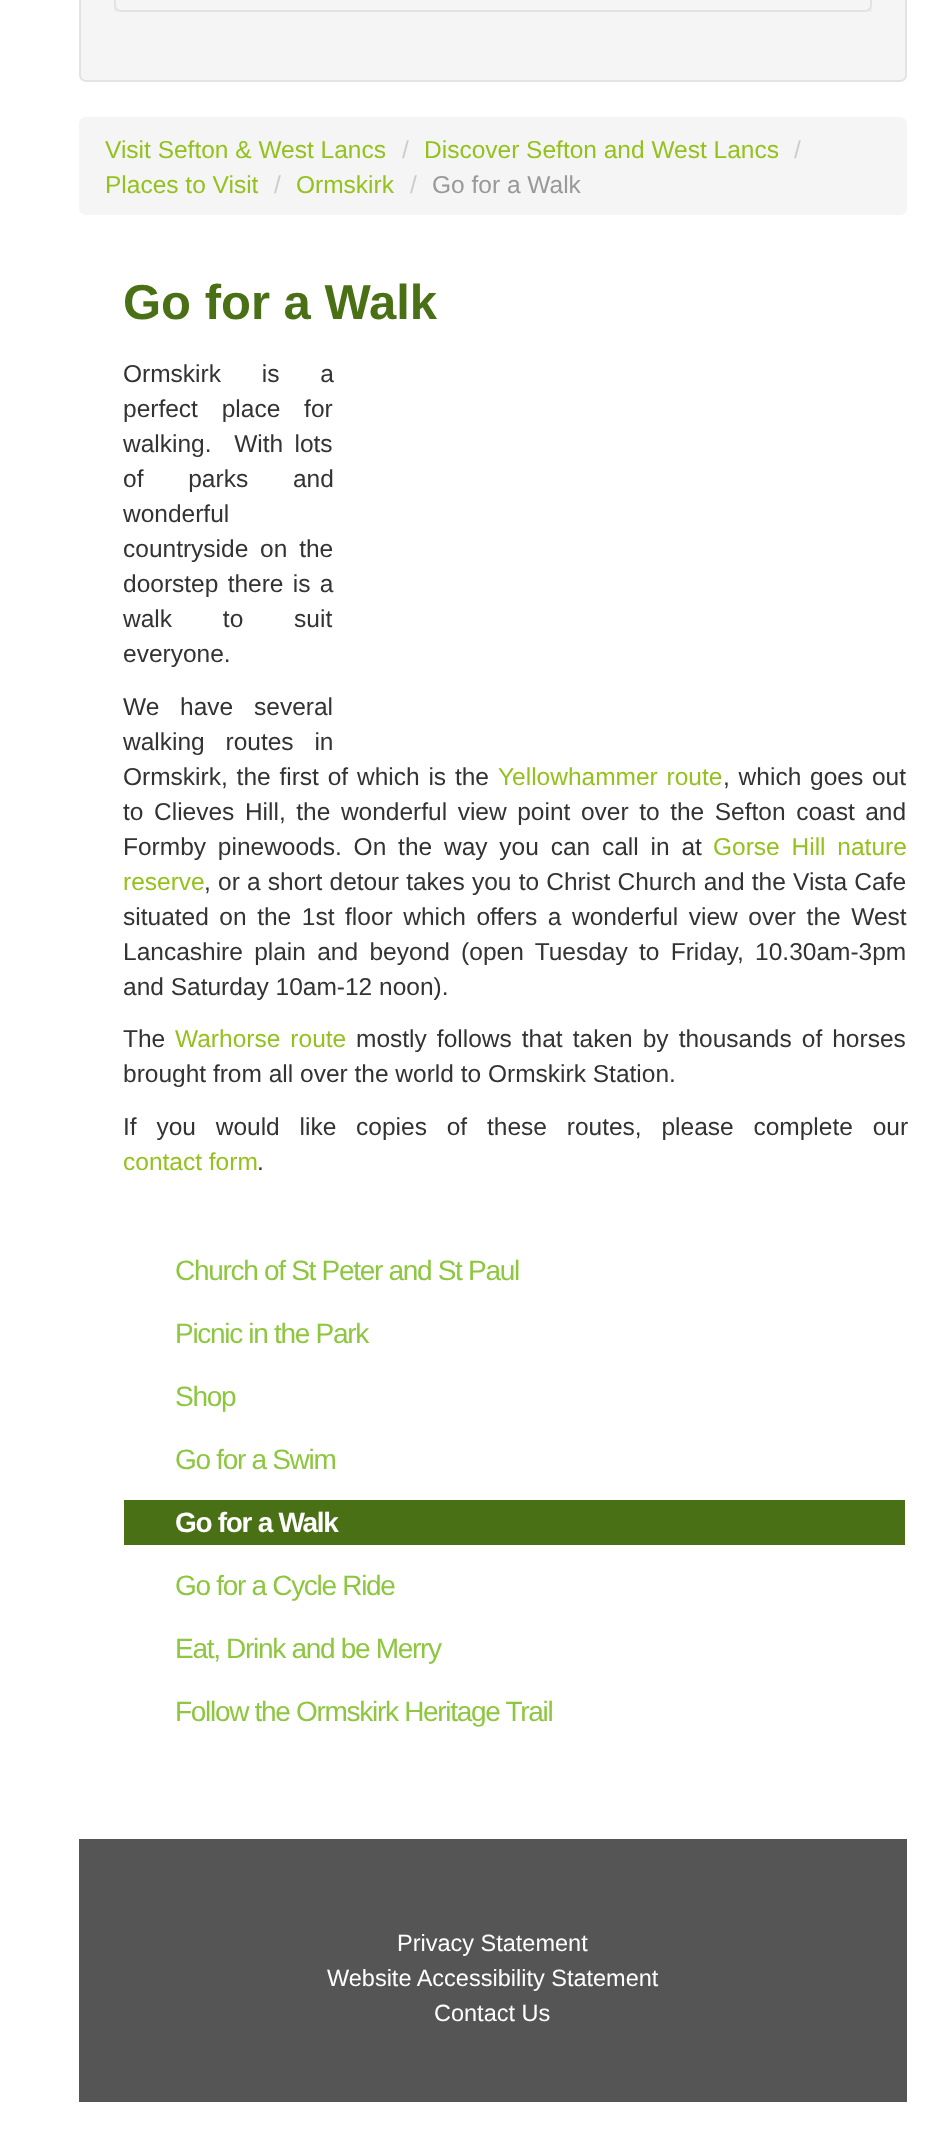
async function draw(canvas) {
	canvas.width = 940;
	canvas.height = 2152;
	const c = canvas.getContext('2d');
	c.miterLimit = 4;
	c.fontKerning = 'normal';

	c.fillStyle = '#fff';
	c.fillRect(0, 0, 940, 2152);
	c.fillStyle = '#f5f5f5';
	c.beginPath();
	c.roundRect(80, -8, 826, 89, 6);
	c.fill();
	c.strokeStyle = '#e3e3e3';
	c.lineWidth = 2;
	c.stroke();
	c.fillStyle = '#eee';
	c.fillRect(114, 5, 758, 7);
	c.fillStyle = '#f5f5f5';
	c.beginPath();
	c.roundRect(115, -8, 756, 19, 6);
	c.fill();
	c.stroke();
	c.beginPath();
	c.roundRect(79, 117, 828, 98, 7);
	c.fill();
	c.font = '24.5px Liberation Sans';
	c.fillStyle = '#95c11f';
	c.fillText('Visit Sefton & West Lancs', 105, 158);
	c.fillStyle = '#ccc';
	c.fillText('/', 402, 158);
	c.fillStyle = '#95c11f';
	c.fillText('Discover Sefton and West Lancs', 424, 158);
	c.fillStyle = '#ccc';
	c.fillText('/', 794, 158);
	c.fillStyle = '#95c11f';
	c.fillText('Places to Visit', 105, 193);
	c.fillStyle = '#ccc';
	c.fillText('/', 274, 193);
	c.fillStyle = '#95c11f';
	c.fillText('Ormskirk', 296, 193);
	c.fillStyle = '#ccc';
	c.fillText('/', 410, 193);
	c.fillStyle = '#999';
	c.fillText('Go for a Walk', 432, 193);
	c.font = 'bold 49px Liberation Sans';
	c.fillStyle = '#497015';
	c.fillText('Go for a Walk', 123, 319);
	c.wordSpacing = '34px';
	c.font = '24.5px Liberation Sans';
	c.fillStyle = '#333';
	c.fillText('Ormskirk is a', 123, 382);
	c.wordSpacing = '17px';
	c.fillText('perfect place for', 123, 417);
	c.wordSpacing = '4.5px';
	c.fillText('walking.  With lots', 123, 452);
	c.wordSpacing = '38px';
	c.fillText('of parks and', 123, 487);
	c.wordSpacing = '0px';
	c.fillText('wonderful', 123, 522);
	c.wordSpacing = '5px';
	c.fillText('countryside on the', 123, 557);
	c.wordSpacing = '2.5px';
	c.fillText('doorstep there is a', 123, 592);
	c.wordSpacing = '44px';
	c.fillText('walk to suit', 123, 627);
	c.wordSpacing = '0px';
	c.fillText('everyone.', 123, 662);
	c.wordSpacing = '14px';
	c.fillText('We have several', 123, 715);
	c.fillText('walking routes in', 123, 750);
	c.wordSpacing = '2px';
	c.fillText('Ormskirk, the first of which is the', 123, 785);
	c.fillStyle = '#95c11f';
	c.fillText('Yellowhammer route', 498, 785);
	c.fillStyle = '#333';
	c.fillText(', which goes out', 723, 785);
	c.wordSpacing = '3.75px';
	c.fillText('to Clieves Hill, the wonderful view point over to the Sefton coast and', 123, 820);
	c.wordSpacing = '5px';
	c.fillText('Formby pinewoods. On the way you can call in at', 123, 855);
	c.fillStyle = '#95c11f';
	c.fillText('Gorse Hill nature', 713, 855);
	c.wordSpacing = '0px';
	c.fillText('reserve', 123, 890);
	c.wordSpacing = '0.4px';
	c.fillStyle = '#333';
	c.fillText(', or a short detour takes you to Christ Church and the Vista Cafe', 204, 890);
	c.wordSpacing = '3.75px';
	c.fillText('situated on the 1st floor which offers a wonderful view over the West', 123, 925);
	c.wordSpacing = '4.5px';
	c.fillText('Lancashire plain and beyond (open Tuesday to Friday, 10.30am-3pm', 123, 960);
	c.wordSpacing = '0px';
	c.fillText('and Saturday 10am-12 noon).', 123, 995);
	c.fillText('The', 123, 1047);
	c.wordSpacing = '3.25px';
	c.fillStyle = '#95c11f';
	c.fillText('Warhorse route', 175, 1047);
	c.fillStyle = '#333';
	c.fillText('mostly follows that taken by thousands of horses', 356, 1047);
	c.wordSpacing = '0px';
	c.fillText('brought from all over the world to Ormskirk Station.', 123, 1082);
	c.wordSpacing = '13px';
	c.fillText('If you would like copies of these routes, please complete our', 123, 1135);
	c.wordSpacing = '0px';
	c.fillStyle = '#95c11f';
	c.fillText('contact form', 123, 1170);
	c.fillStyle = '#333';
	c.fillText('.', 257, 1170);
	c.letterSpacing = '-1.3px';
	c.font = '28px Liberation Sans';
	c.fillStyle = '#8dc63f';
	for (const [text, x, y] of [
		['Church of St Peter and St Paul', 175, 1280],
		['Picnic in the Park', 175, 1343],
		['Shop', 175, 1406],
		['Go for a Swim', 175, 1469],
	]) {
		c.fillText(text, x, y);
	}
	c.fillStyle = '#497015';
	c.fillRect(124, 1500, 781, 45);
	c.font = 'bold 28px Liberation Sans';
	c.fillStyle = '#fff';
	c.fillText('Go for a Walk', 175, 1532);
	c.font = '28px Liberation Sans';
	c.fillStyle = '#8dc63f';
	for (const [text, x, y] of [
		['Go for a Cycle Ride', 175, 1595],
		['Eat, Drink and be Merry', 175, 1658],
		['Follow the Ormskirk Heritage Trail', 175, 1721],
	]) {
		c.fillText(text, x, y);
	}
	c.fillStyle = '#555';
	c.fillRect(79, 1839, 828, 263);
	c.letterSpacing = '0px';
	c.font = '23.5px Liberation Sans';
	c.fillStyle = '#fff';
	for (const [text, x, y] of [
		['Privacy Statement', 397, 1951],
		['Website Accessibility Statement', 327, 1986],
		['Contact Us', 434, 2021],
	]) {
		c.fillText(text, x, y);
	}
}

draw(document.querySelector('canvas'));
